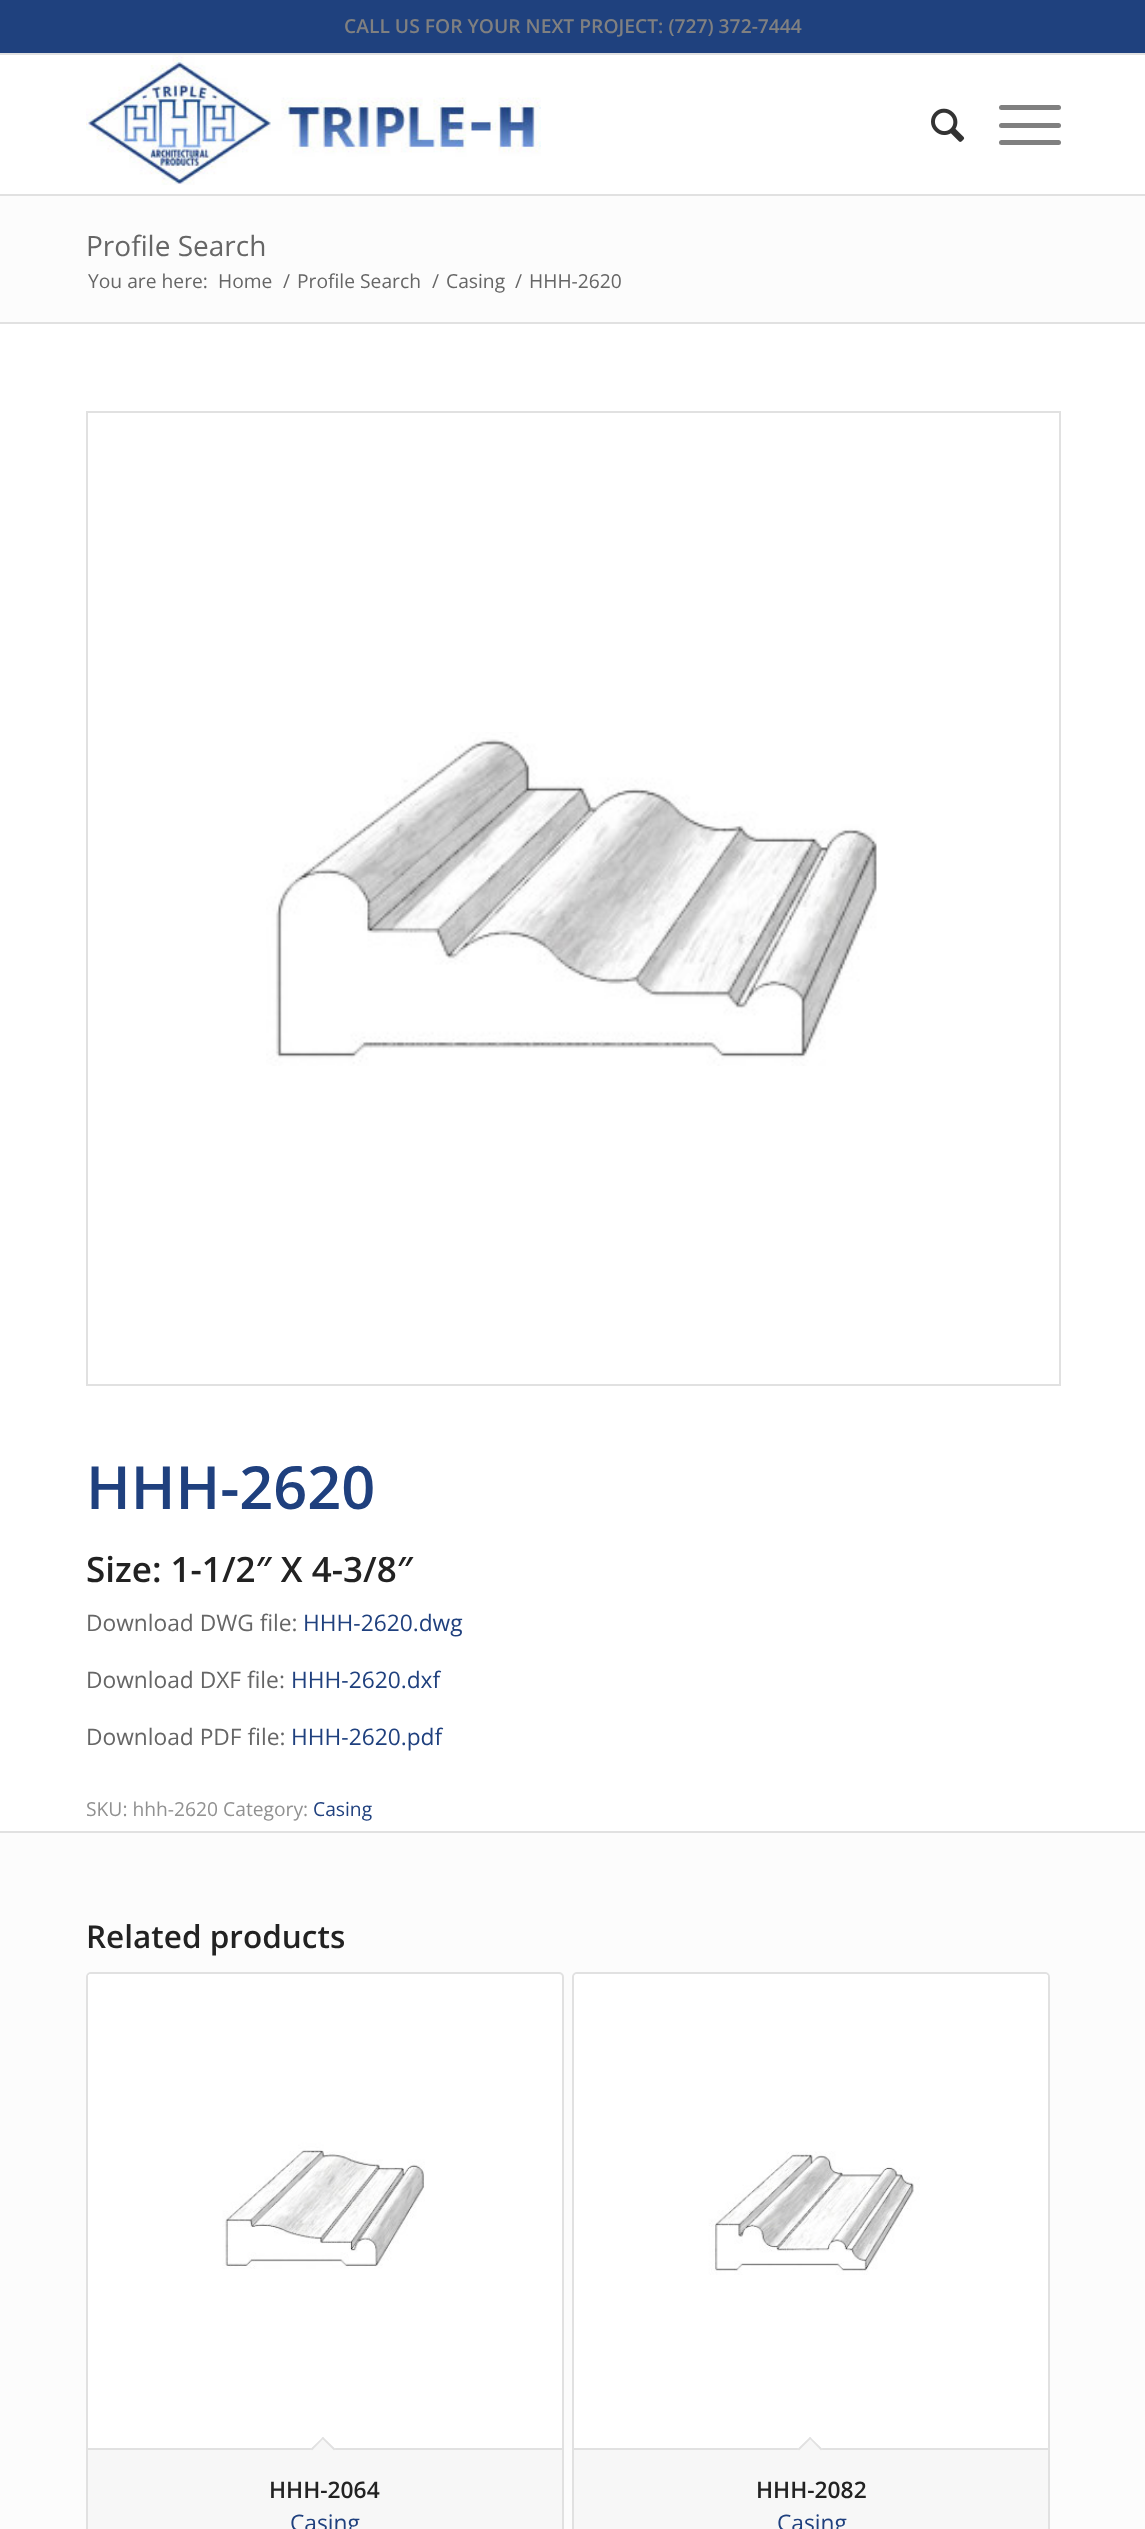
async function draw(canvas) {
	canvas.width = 1145;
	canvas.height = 2529;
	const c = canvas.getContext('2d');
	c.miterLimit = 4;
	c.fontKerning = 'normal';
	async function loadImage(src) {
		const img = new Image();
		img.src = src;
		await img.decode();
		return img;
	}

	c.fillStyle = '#fff';
	c.fillRect(0, 0, 1145, 2529);
	c.fillStyle = '#1f417e';
	c.fillRect(0, 0, 1145, 53);
	c.fillStyle = '#e1e1e1';
	c.fillRect(0, 53, 1145, 2);
	c.font = '600 19.25px Open Sans';
	c.fillStyle = '#808080';
	c.fillText('CALL US FOR YOUR NEXT PROJECT: (727) 372-7444', 344, 33);
	c.fillStyle = '#e1e1e1';
	c.fillRect(0, 194, 1145, 2);
	c.drawImage(await loadImage('img1.png'), 86, 55, 455, 130);
	c.drawImage(await loadImage('img2.png'), 931, 108, 34, 34);
	c.fillStyle = '#808080';
	c.beginPath();
	c.roundRect(999, 123, 62, 5, 2.5);
	c.fill();
	c.beginPath();
	c.roundRect(999, 105, 62, 5, 2.5);
	c.fill();
	c.beginPath();
	c.roundRect(999, 140, 62, 5, 2.5);
	c.fill();
	c.fillStyle = '#fcfcfc';
	c.fillRect(0, 196, 1145, 126);
	c.font = '28px Open Sans';
	c.fillStyle = '#666';
	c.fillText('Profile Search', 86, 256);
	c.font = '19.25px Open Sans';
	for (const [text, x, y] of [
		['You are here:', 88, 288],
		['Home', 218, 288],
		['/', 283, 288],
		['Profile Search', 297, 288],
		['/', 432, 288],
		['Casing', 446, 288],
		['/', 515, 288],
		['HHH-2620', 529, 288],
	]) {
		c.fillText(text, x, y);
	}
	c.fillStyle = '#e1e1e1';
	c.fillRect(0, 322, 1145, 2);
	c.strokeStyle = '#e1e1e1';
	c.lineWidth = 2;
	c.strokeRect(87, 412, 973, 973);
	c.drawImage(await loadImage('img3.png'), 266, 732, 611, 334);
	c.font = '600 59.5px Open Sans';
	c.fillStyle = '#1f407e';
	c.fillText('HHH-2620', 86, 1509);
	c.font = '600 35px Open Sans';
	c.fillStyle = '#222';
	c.fillText('Size: 1-1/2″ X 4-3/8″', 86, 1582);
	c.font = '22.75px Open Sans';
	c.fillStyle = '#666';
	c.fillText('Download DWG file:', 86, 1631);
	c.fillStyle = '#1f407e';
	c.fillText('HHH-2620.dwg', 303, 1631);
	c.fillStyle = '#666';
	c.fillText('Download DXF file:', 86, 1688);
	c.fillStyle = '#1f407e';
	c.fillText('HHH-2620.dxf', 291, 1688);
	c.fillStyle = '#666';
	c.fillText('Download PDF file:', 86, 1745);
	c.fillStyle = '#1f407e';
	c.fillText('HHH-2620.pdf', 291, 1745);
	c.font = '19.25px Open Sans';
	c.fillStyle = '#919191';
	c.fillText('SKU: hhh-2620 Category:', 86, 1816);
	c.fillStyle = '#1f407e';
	c.fillText('Casing', 313, 1816);
	c.fillStyle = '#fcfcfc';
	c.fillRect(0, 1833, 1145, 696);
	c.fillStyle = '#e1e1e1';
	c.fillRect(0, 1831, 1145, 2);
	c.font = '600 31.5px Open Sans';
	c.fillStyle = '#222';
	c.fillText('Related products', 86, 1948);
	c.fillStyle = '#fff';
	c.beginPath();
	c.roundRect(87, 1973, 476, 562, 4);
	c.fill();
	c.stroke();
	c.drawImage(await loadImage('img4.png'), 88, 1974, 337, 295);
	c.fillStyle = '#f7f7f7';
	c.fillRect(88, 2450, 474, 79);
	c.fillStyle = '#e1e1e1';
	c.fillRect(88, 2448, 474, 2);
	c.fillStyle = '#f7f7f7';
	c.beginPath();
	c.moveTo(323, 2437);
	c.lineTo(335.5, 2449);
	c.lineTo(323, 2461.5);
	c.lineTo(310.5, 2449);
	c.closePath();
	c.fill();
	c.fillStyle = '#e1e1e1';
	c.beginPath();
	c.moveTo(323, 2437);
	c.lineTo(335.5, 2449);
	c.lineTo(334, 2450.5);
	c.lineTo(321.5, 2438);
	c.closePath();
	c.fill();
	c.beginPath();
	c.moveTo(323, 2437);
	c.lineTo(324, 2438);
	c.lineTo(312, 2450.5);
	c.lineTo(310.5, 2449);
	c.closePath();
	c.fill();
	c.font = '600 22.75px Open Sans';
	c.fillStyle = '#222';
	c.fillText('HHH-2064', 269, 2498);
	c.font = '22.75px Open Sans';
	c.fillStyle = '#1f407e';
	c.fillText('Casing', 290, 2531);
	c.fillStyle = '#fff';
	c.beginPath();
	c.roundRect(573, 1973, 476, 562, 4);
	c.fill();
	c.stroke();
	c.drawImage(await loadImage('img5.png'), 574, 1974, 474, 301);
	c.fillStyle = '#f7f7f7';
	c.fillRect(574, 2450, 474, 79);
	c.fillStyle = '#e1e1e1';
	c.fillRect(574, 2448, 474, 2);
	c.fillStyle = '#f7f7f7';
	c.beginPath();
	c.moveTo(810, 2437);
	c.lineTo(822.5, 2449);
	c.lineTo(810, 2461.5);
	c.lineTo(797.5, 2449);
	c.closePath();
	c.fill();
	c.fillStyle = '#e1e1e1';
	c.beginPath();
	c.moveTo(810, 2437);
	c.lineTo(822.5, 2449);
	c.lineTo(821, 2450.5);
	c.lineTo(809, 2438);
	c.closePath();
	c.fill();
	c.beginPath();
	c.moveTo(810, 2437);
	c.lineTo(811.5, 2438);
	c.lineTo(799, 2450.5);
	c.lineTo(797.5, 2449);
	c.closePath();
	c.fill();
	c.font = '600 22.75px Open Sans';
	c.fillStyle = '#222';
	c.fillText('HHH-2082', 756, 2498);
	c.font = '22.75px Open Sans';
	c.fillStyle = '#1f407e';
	c.fillText('Casing', 777, 2531);
}

draw(document.querySelector('canvas'));
